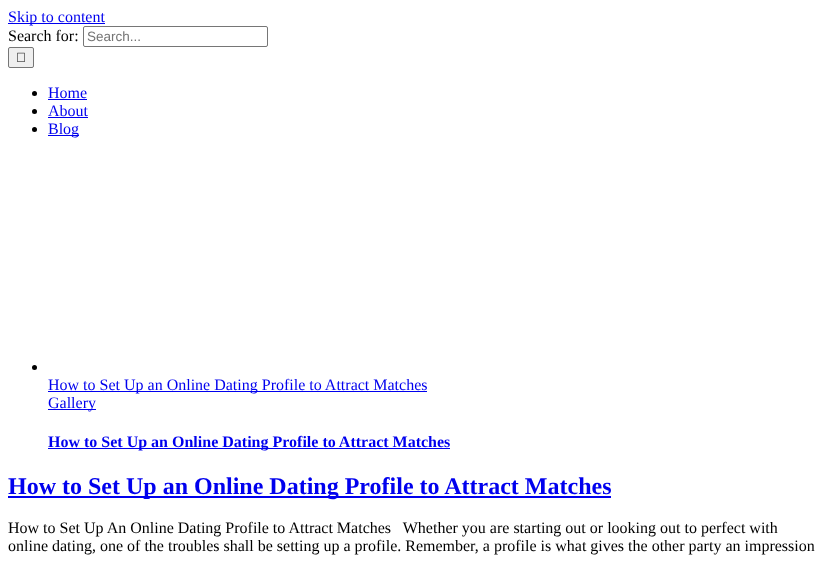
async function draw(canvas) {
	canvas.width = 829;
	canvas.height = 561;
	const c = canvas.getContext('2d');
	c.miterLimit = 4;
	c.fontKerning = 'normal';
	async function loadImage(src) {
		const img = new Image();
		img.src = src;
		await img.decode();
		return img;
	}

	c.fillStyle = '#fff';
	c.fillRect(0, 0, 829, 561);
	c.fillStyle = '#00e';
	c.fillRect(8, 23, 97, 1);
	c.font = '16px Liberation Serif';
	c.fillText('Skip to content', 8, 22);
	c.fillStyle = '#000';
	c.fillText('Search for:', 8, 41);
	c.beginPath();
	c.roundRect(83.5, 26.5, 184, 20, 1.5);
	c.strokeStyle = '#767676';
	c.stroke();
	c.font = '13.5px Liberation Sans';
	c.fillStyle = '#757575';
	c.fillText('Search...', 87, 41);
	c.fillStyle = '#efefef';
	c.beginPath();
	c.roundRect(8.5, 47.5, 25, 20, 1.5);
	c.fill();
	c.stroke();
	c.drawImage(await loadImage('img1.png'), 17, 52, 8, 10);
	c.fillStyle = '#000';
	c.beginPath();
	c.arc(34.5, 93.5, 2.5, 0, 2 * Math.PI);
	c.fill();
	c.font = '16px Liberation Serif';
	c.fillStyle = '#00e';
	c.fillText('Home', 48, 98);
	c.fillRect(48, 99, 39, 1);
	c.fillStyle = '#000';
	c.beginPath();
	c.arc(34.5, 111.5, 2.5, 0, 2 * Math.PI);
	c.fill();
	c.fillStyle = '#00e';
	c.fillText('About', 48, 116);
	c.fillRect(48, 117, 40, 1);
	c.fillStyle = '#000';
	c.beginPath();
	c.arc(34.5, 129.5, 2.5, 0, 2 * Math.PI);
	c.fill();
	c.fillStyle = '#00e';
	c.fillRect(48, 135, 31, 1);
	c.fillText('Blog', 48, 134);
	c.fillStyle = '#000';
	c.beginPath();
	c.arc(34.5, 367.5, 2.5, 0, 2 * Math.PI);
	c.fill();
	c.fillStyle = '#00e';
	c.fillRect(48, 391, 379, 1);
	c.fillText('How to Set Up an Online Dating Profile to Attract Matches', 48, 390);
	c.fillRect(48, 409, 48, 1);
	c.fillText('Gallery', 48, 408);
	c.fillRect(48, 448, 402, 1);
	c.font = 'bold 16px Liberation Serif';
	c.fillText('How to Set Up an Online Dating Profile to Attract Matches', 48, 447);
	c.fillRect(8, 496, 603, 2);
	c.font = 'bold 24px Liberation Serif';
	c.fillText('How to Set Up an Online Dating Profile to Attract Matches', 8, 494);
	c.font = '16px Liberation Serif';
	c.fillStyle = '#000';
	c.fillText('How to Set Up An Online Dating Profile to Attract Matches   Whether you are starting out or looking out to perfect with', 8, 533);
	c.fillText('online dating, one of the troubles shall be setting up a profile. Remember, a profile is what gives the other party an impression', 8, 551);
}

draw(document.querySelector('canvas'));
